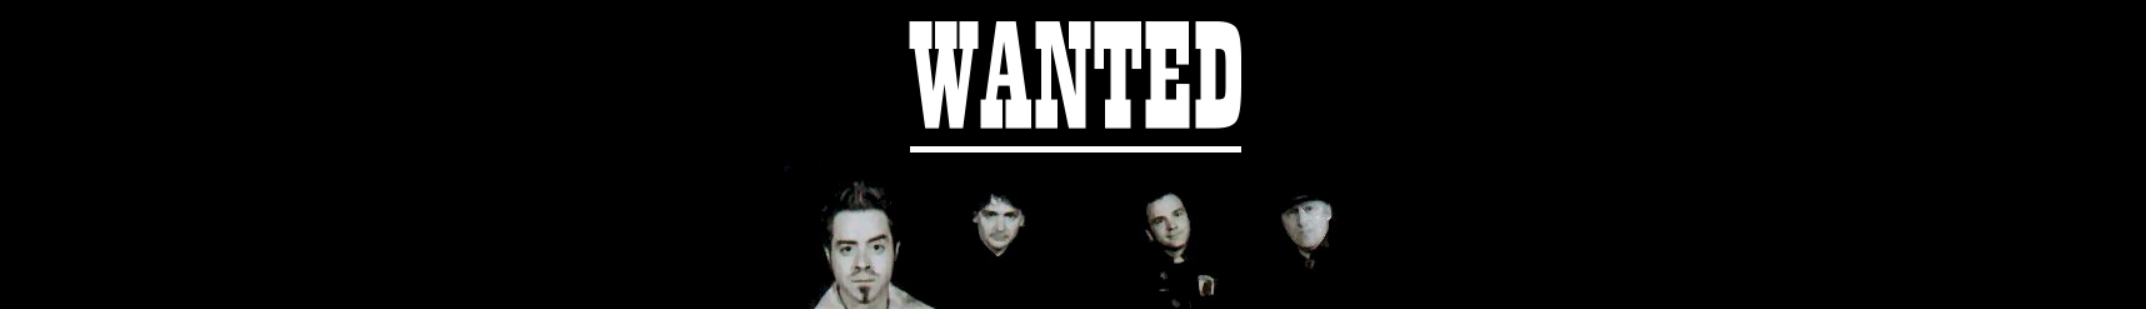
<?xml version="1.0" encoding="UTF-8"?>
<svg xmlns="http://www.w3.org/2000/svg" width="2146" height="309">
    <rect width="100%" height="100%" fill="#000000"/>
    <image x="908" y="21" width="334" height="132" href="img_01.png"/>
    <image x="784" y="161" width="554" height="148" href="img_02.png"/>
</svg>
